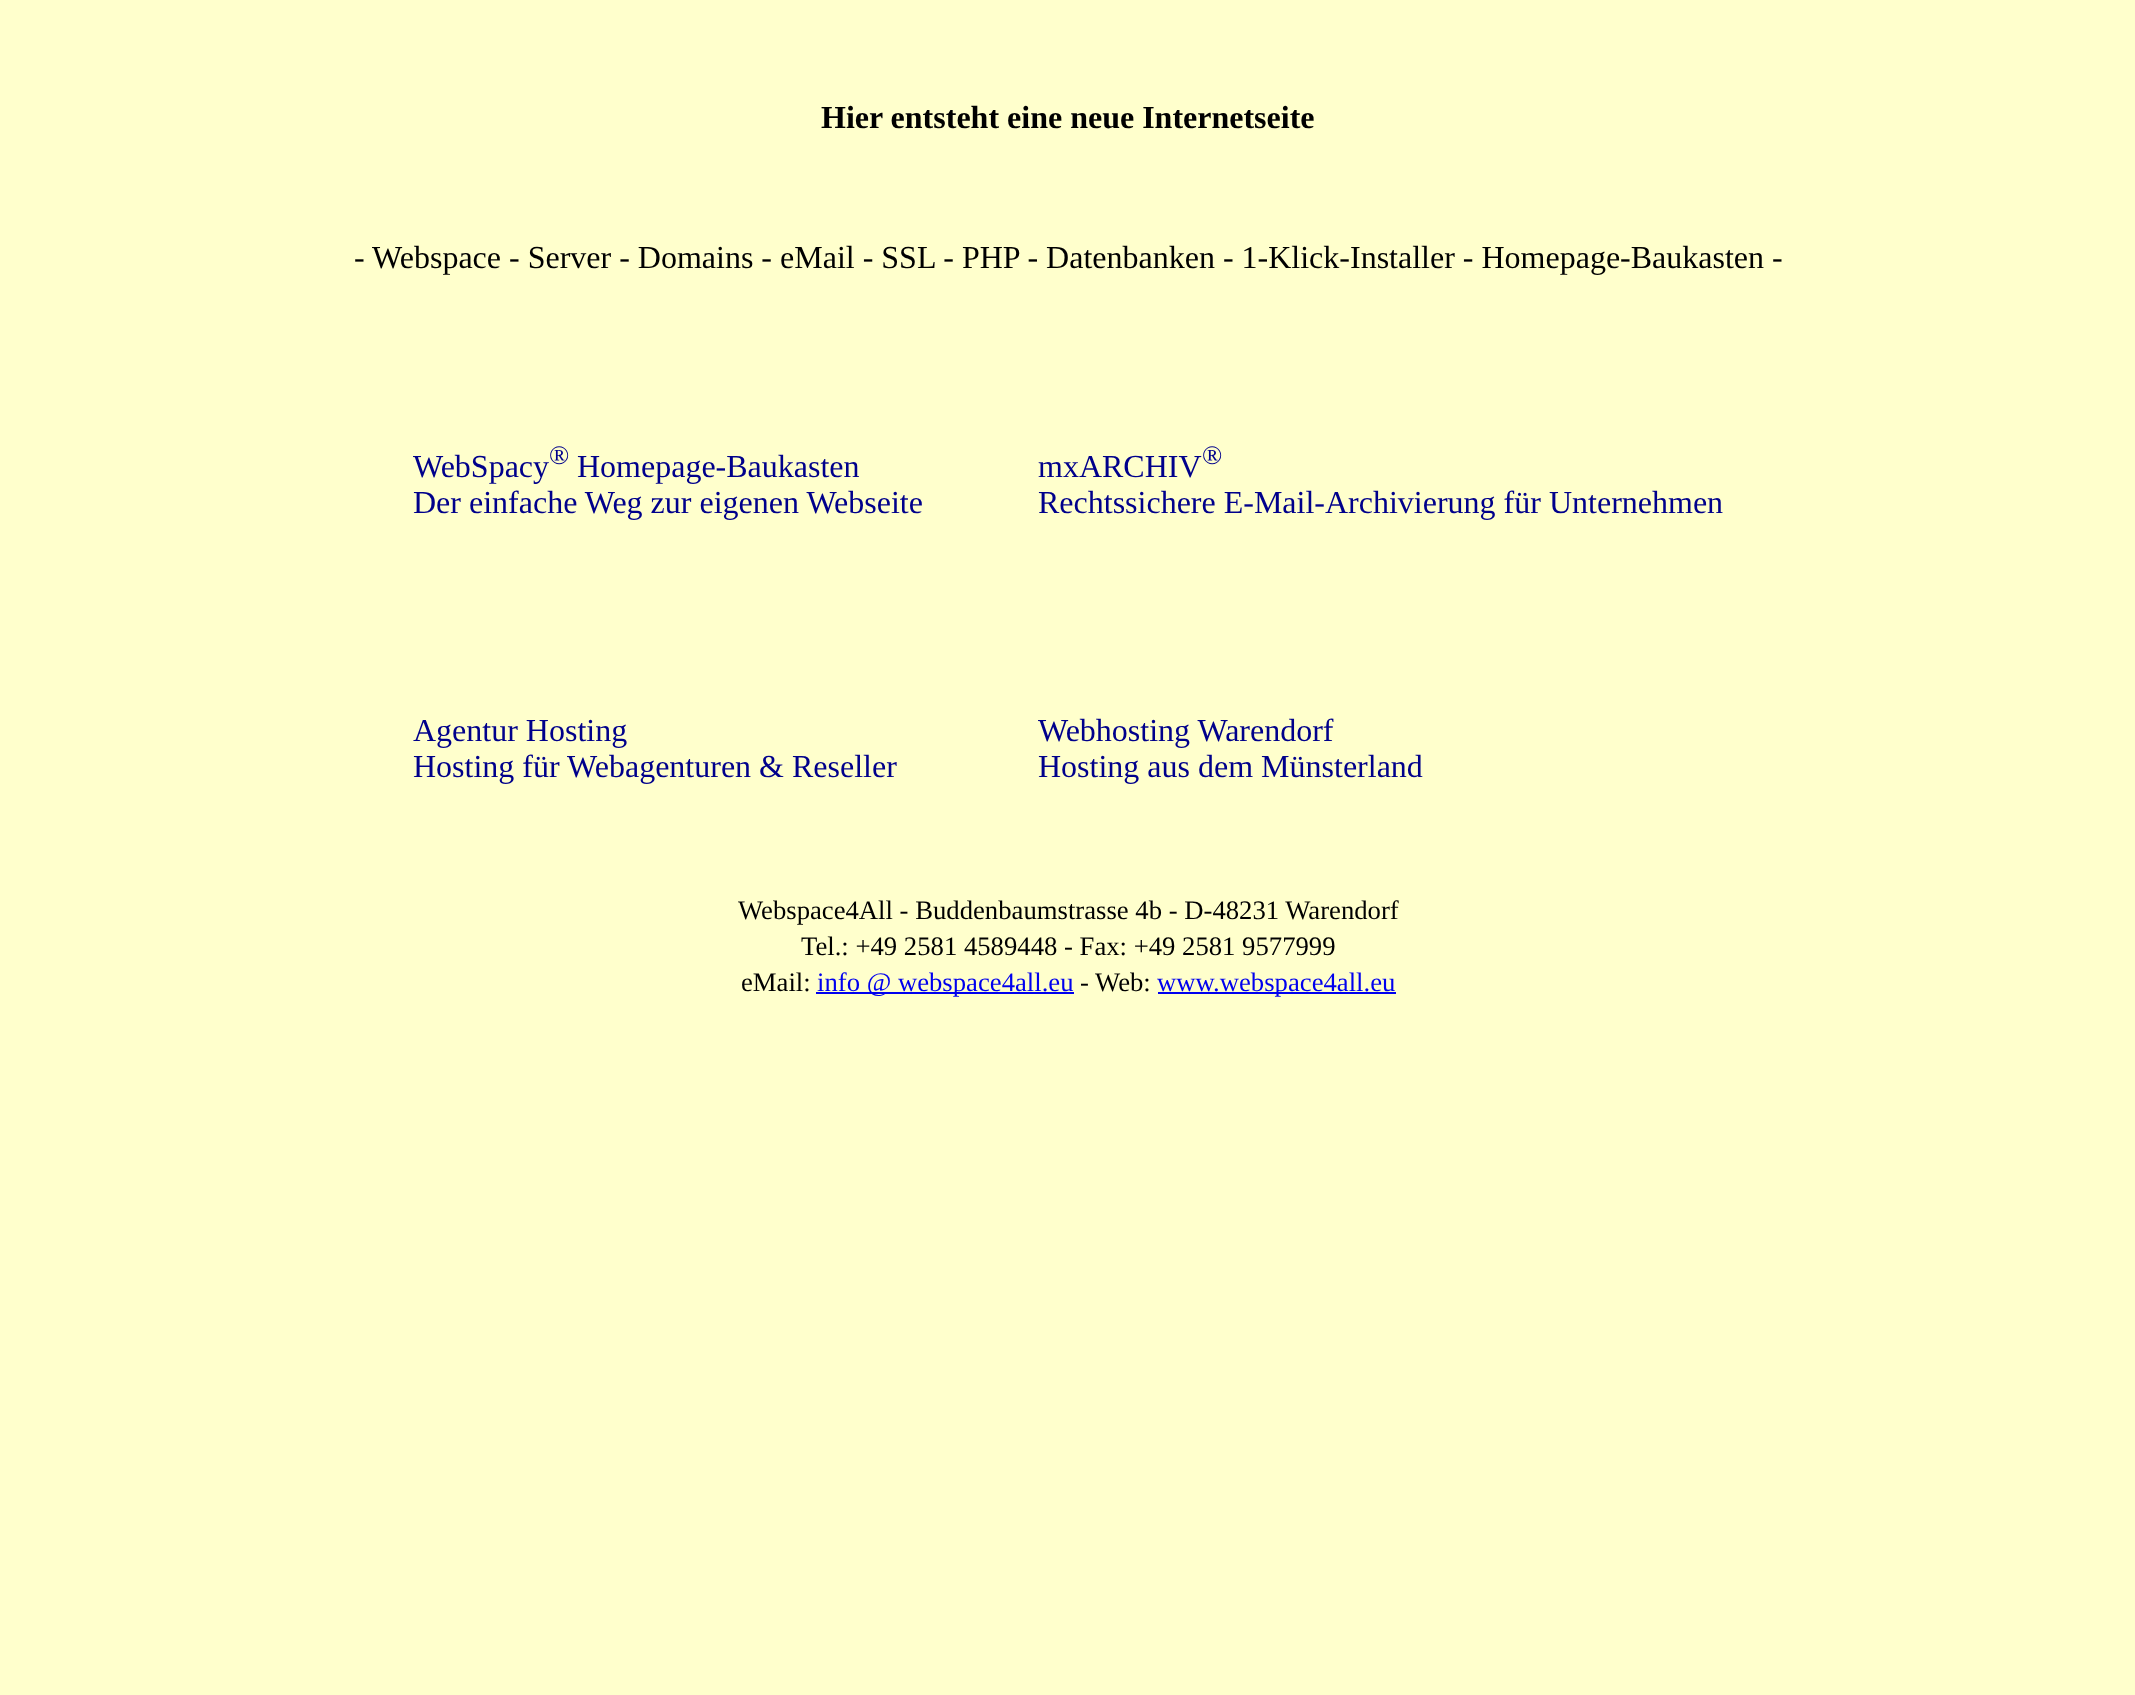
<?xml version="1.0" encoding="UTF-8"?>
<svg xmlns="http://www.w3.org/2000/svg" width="2135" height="1695">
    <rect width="100%" height="100%" fill="#FFFFCC"/>
    <text x="821" y="128" font-family="Liberation Serif" font-size="32" font-weight="700" fill="#000000">Hier entsteht eine neue Internetseite</text>
    <text x="354" y="268" font-family="Liberation Serif" font-size="32" fill="#000000">- Webspace - Server - Domains - eMail - SSL - PHP - Datenbanken - 1-Klick-Installer - Homepage-Baukasten -</text>
    <text x="413" y="477" font-family="Liberation Serif" font-size="32" fill="#00008B">WebSpacy</text>
    <text x="549" y="464" font-family="Liberation Serif" font-size="26.7" fill="#00008B">®</text>
    <text x="577" y="477" font-family="Liberation Serif" font-size="32" fill="#00008B">Homepage-Baukasten</text>
    <text x="413" y="513" font-family="Liberation Serif" font-size="32" fill="#00008B">Der einfache Weg zur eigenen Webseite</text>
    <text x="1038" y="477" font-family="Liberation Serif" font-size="32" fill="#00008B">mxARCHIV</text>
    <text x="1202" y="464" font-family="Liberation Serif" font-size="26.7" fill="#00008B">®</text>
    <text x="1038" y="513" font-family="Liberation Serif" font-size="32" fill="#00008B">Rechtssichere E-Mail-Archivierung für Unternehmen</text>
    <text font-family="Liberation Serif" font-size="32" fill="#00008B">
        <tspan x="413" y="741">Agentur Hosting</tspan>
        <tspan x="413" y="777">Hosting für Webagenturen &amp; Reseller</tspan>
    </text>
    <text font-family="Liberation Serif" font-size="32" fill="#00008B">
        <tspan x="1038" y="741">Webhosting Warendorf</tspan>
        <tspan x="1038" y="777">Hosting aus dem Münsterland</tspan>
    </text>
    <text x="738" y="919" font-family="Liberation Serif" font-size="26.7" fill="#000000">Webspace4All - Buddenbaumstrasse 4b - D-48231 Warendorf</text>
    <text x="801" y="955" font-family="Liberation Serif" font-size="26.7" fill="#000000">Tel.: +49 2581 4589448 - Fax: +49 2581 9577999</text>
    <text x="741" y="991" font-family="Liberation Serif" font-size="26.7" fill="#000000">eMail:</text>
    <rect x="816" y="992" width="258" height="2" fill="#0000EE"/>
    <text x="817" y="991" font-family="Liberation Serif" font-size="26.7" fill="#0000EE">info @ webspace4all.eu</text>
    <text x="1080" y="991" font-family="Liberation Serif" font-size="26.7" fill="#000000">- Web:</text>
    <rect x="1158" y="992" width="238" height="2" fill="#0000EE"/>
    <text x="1157" y="991" font-family="Liberation Serif" font-size="26.7" fill="#0000EE">www.webspace4all.eu</text>
</svg>
